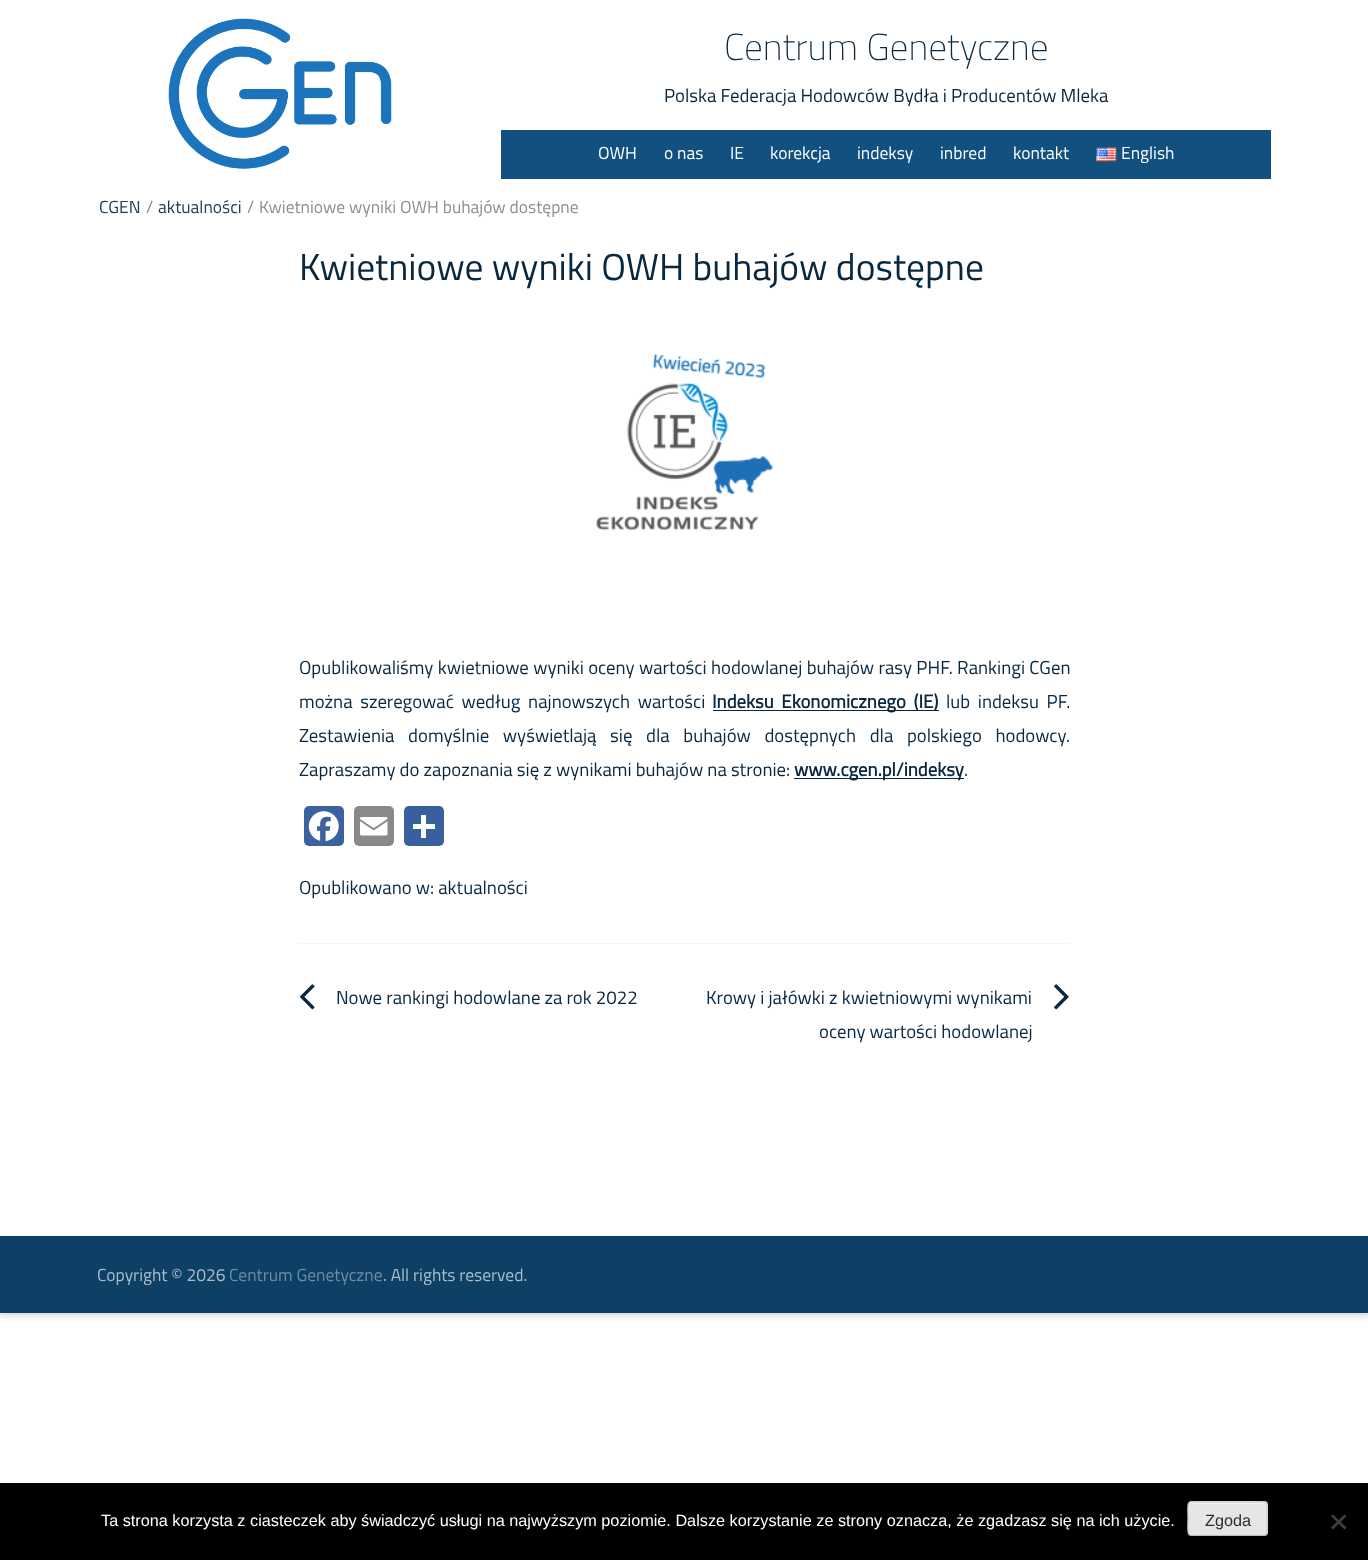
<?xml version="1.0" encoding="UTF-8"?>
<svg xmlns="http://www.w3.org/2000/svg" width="1368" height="1560">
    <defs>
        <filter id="blur1" x="-50%" y="-200%" width="200%" height="500%"><feGaussianBlur stdDeviation="4"/></filter>
    </defs>
    <rect width="100%" height="100%" fill="#FFFFFF"/>
    <rect x="-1" y="-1" width="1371" height="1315" fill="#000000" fill-opacity="0.25" filter="url(#blur1)"/>
    <rect x="0" y="0" width="1368" height="1236" fill="#FFFFFF"/>
    <image x="168" y="18" width="224" height="151" href="img_01.png"/>
    <text x="724" y="60" font-family="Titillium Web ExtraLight" font-size="37.5" font-weight="200" fill="#092840">Centrum Genetyczne</text>
    <text x="664" y="102" font-family="Titillium Web" font-size="18.75" fill="#092840">Polska Federacja Hodowców Bydła i Producentów Mleka</text>
    <rect x="501" y="130" width="770" height="49" fill="#12507F"/>
    <text x="598" y="159" font-family="Titillium Web" font-size="17.5" fill="#FFFFFF">OWH</text>
    <text x="664" y="159" font-family="Titillium Web" font-size="17.5" fill="#FFFFFF">o nas</text>
    <text x="730" y="159" font-family="Titillium Web" font-size="17.5" fill="#FFFFFF">IE</text>
    <text x="770" y="159" font-family="Titillium Web" font-size="17.5" fill="#FFFFFF">korekcja</text>
    <text x="857" y="159" font-family="Titillium Web" font-size="17.5" fill="#FFFFFF">indeksy</text>
    <text x="940" y="159" font-family="Titillium Web" font-size="17.5" fill="#FFFFFF">inbred</text>
    <text x="1013" y="159" font-family="Titillium Web" font-size="17.5" fill="#FFFFFF">kontakt</text>
    <image x="1096" y="147" width="21" height="15" href="img_02.png"/>
    <text x="1121" y="159" font-family="Titillium Web" font-size="17.5" fill="#FFFFFF">English</text>
    <text x="99" y="213" font-family="Titillium Web" font-size="17.5" fill="#223E53">CGEN</text>
    <text x="146" y="213" font-family="Titillium Web" font-size="17.5" fill="#8A8F94">/</text>
    <text x="158" y="213" font-family="Titillium Web" font-size="17.5" fill="#223E53">aktualności</text>
    <text x="247" y="213" font-family="Titillium Web" font-size="17.5" fill="#8A8F94">/</text>
    <text x="259" y="213" font-family="Titillium Web" font-size="17.5" fill="#8A8F94">Kwietniowe wyniki OWH buhajów dostępne</text>
    <text x="299" y="280" font-family="Titillium Web" font-size="37.5" fill="#092840">Kwietniowe wyniki OWH buhajów dostępne</text>
    <image x="596" y="353" width="177" height="178" href="img_03.png"/>
    <text font-family="Titillium Web" font-size="18.75" fill="#092840">
        <tspan x="299" y="674" word-spacing="0.25">Opublikowaliśmy kwietniowe wyniki oceny wartości hodowlanej buhajów rasy PHF. Rankingi CGen</tspan>
        <tspan x="299" y="708" word-spacing="3.5">można szeregować według najnowszych wartości</tspan>
    </text>
    <rect x="713" y="710" width="226" height="1" fill="#092840"/>
    <text x="712" y="708" word-spacing="3.5" font-family="Titillium Web" font-size="18.75" font-weight="700" fill="#092840">Indeksu Ekonomicznego (IE)</text>
    <text x="946" y="708" word-spacing="3.5" font-family="Titillium Web" font-size="18.75" fill="#092840">lub indeksu PF.</text>
    <text font-family="Titillium Web" font-size="18.75" fill="#092840">
        <tspan x="299" y="742" word-spacing="9.5">Zestawienia domyślnie wyświetlają się dla buhajów dostępnych dla polskiego hodowcy.</tspan>
        <tspan x="299" y="776">Zapraszamy do zapoznania się z wynikami buhajów na stronie:</tspan>
    </text>
    <rect x="794" y="778" width="170" height="1" fill="#092840"/>
    <text x="794" y="776" font-family="Titillium Web" font-size="18.75" font-weight="700" fill="#092840">www.cgen.pl/indeksy</text>
    <text x="964" y="776" font-family="Titillium Web" font-size="18.75" fill="#092840">.</text>
    <rect x="304" y="806" width="40" height="40" rx="5" fill="#3B619E"/>
    <image x="308" y="811" width="31" height="31" href="img_04.png"/>
    <rect x="354" y="806" width="40" height="40" rx="5" fill="#89898C"/>
    <image x="360" y="817" width="28" height="19" href="img_05.png"/>
    <rect x="404" y="806" width="40" height="40" rx="5" fill="#37609D"/>
    <rect x="421" y="815" width="5" height="23" fill="#FFFFFF"/>
    <rect x="413" y="824" width="22" height="5" fill="#FFFFFF"/>
    <text x="299" y="894" font-family="Titillium Web" font-size="18.75" fill="#092840">Opublikowano w: aktualności</text>
    <rect x="299" y="943" width="771" height="1" fill="#F4F5F5"/>
    <image x="299" y="984" width="16" height="26" href="img_06.png"/>
    <text x="336" y="1004" font-family="Titillium Web" font-size="18.75" fill="#092840">Nowe rankingi hodowlane za rok 2022</text>
    <text x="706" y="1004" font-family="Titillium Web" font-size="18.75" fill="#092840">Krowy i jałówki z kwietniowymi wynikami</text>
    <image x="1054" y="984" width="15" height="26" href="img_07.png"/>
    <text x="819" y="1038" font-family="Titillium Web" font-size="18.75" fill="#092840">oceny wartości hodowlanej</text>
    <rect x="0" y="1236" width="1368" height="77" fill="#0E4066"/>
    <text x="97" y="1281" font-family="Titillium Web" font-size="17.5" fill="#ABBCC9">Copyright © 2026</text>
    <text x="229" y="1281" font-family="Titillium Web" font-size="17.5" fill="#6E8CA3">Centrum Genetyczne</text>
    <text x="383" y="1281" font-family="Titillium Web" font-size="17.5" fill="#ABBCC9">. All rights reserved.</text>
    <rect x="0" y="1483" width="1368" height="77" fill="#000000"/>
    <text x="101" y="1526" font-family="Liberation Sans" font-size="16.25" fill="#FFFFFF">Ta strona korzysta z ciasteczek aby świadczyć usługi na najwyższym poziomie. Dalsze korzystanie ze strony oznacza, że zgadzasz się na ich użycie.</text>
    <rect x="1188" y="1501" width="80" height="35" rx="4" fill="#E6E6E6"/>
    <path d="M 1191 1504 H 1264 C 1265 1504 1266 1505 1266 1506 C 1266 1500 1252 1503 1252 1503 H 1204 C 1203 1503 1189 1500 1189 1506 C 1189 1505 1190 1504 1191 1504 Z" fill="#F3F3F3"/>
    <path d="M 1266 1534.5 L 1264 1535.5 H 1191 L 1189 1534.5" fill="none" stroke="#BBBBBB" stroke-width="1.2"/>
    <path d="M 1189 1534.5 C 1187 1532.5 1188 1521.5 1188 1519 C 1188 1499.5 1184.5 1502 1203.5 1502 H 1251.5 C 1270.5 1502 1267 1499.5 1267 1519 C 1267 1521.5 1268 1532.5 1266 1534.5" fill="none" stroke="#CCCCCC" stroke-width="1.2"/>
    <text x="1205" y="1526" font-family="Liberation Sans" font-size="16.25" fill="#2E2E2E">Zgoda</text>
    <path d="M 1344.5 1514.5 L 1346.5 1516 L 1333 1529.5 L 1331 1527.5 Z" fill="#404040"/>
    <path d="M 1331 1516 L 1333 1514.5 L 1346.5 1527.5 L 1344.5 1529.5 Z" fill="#404040"/>
</svg>
